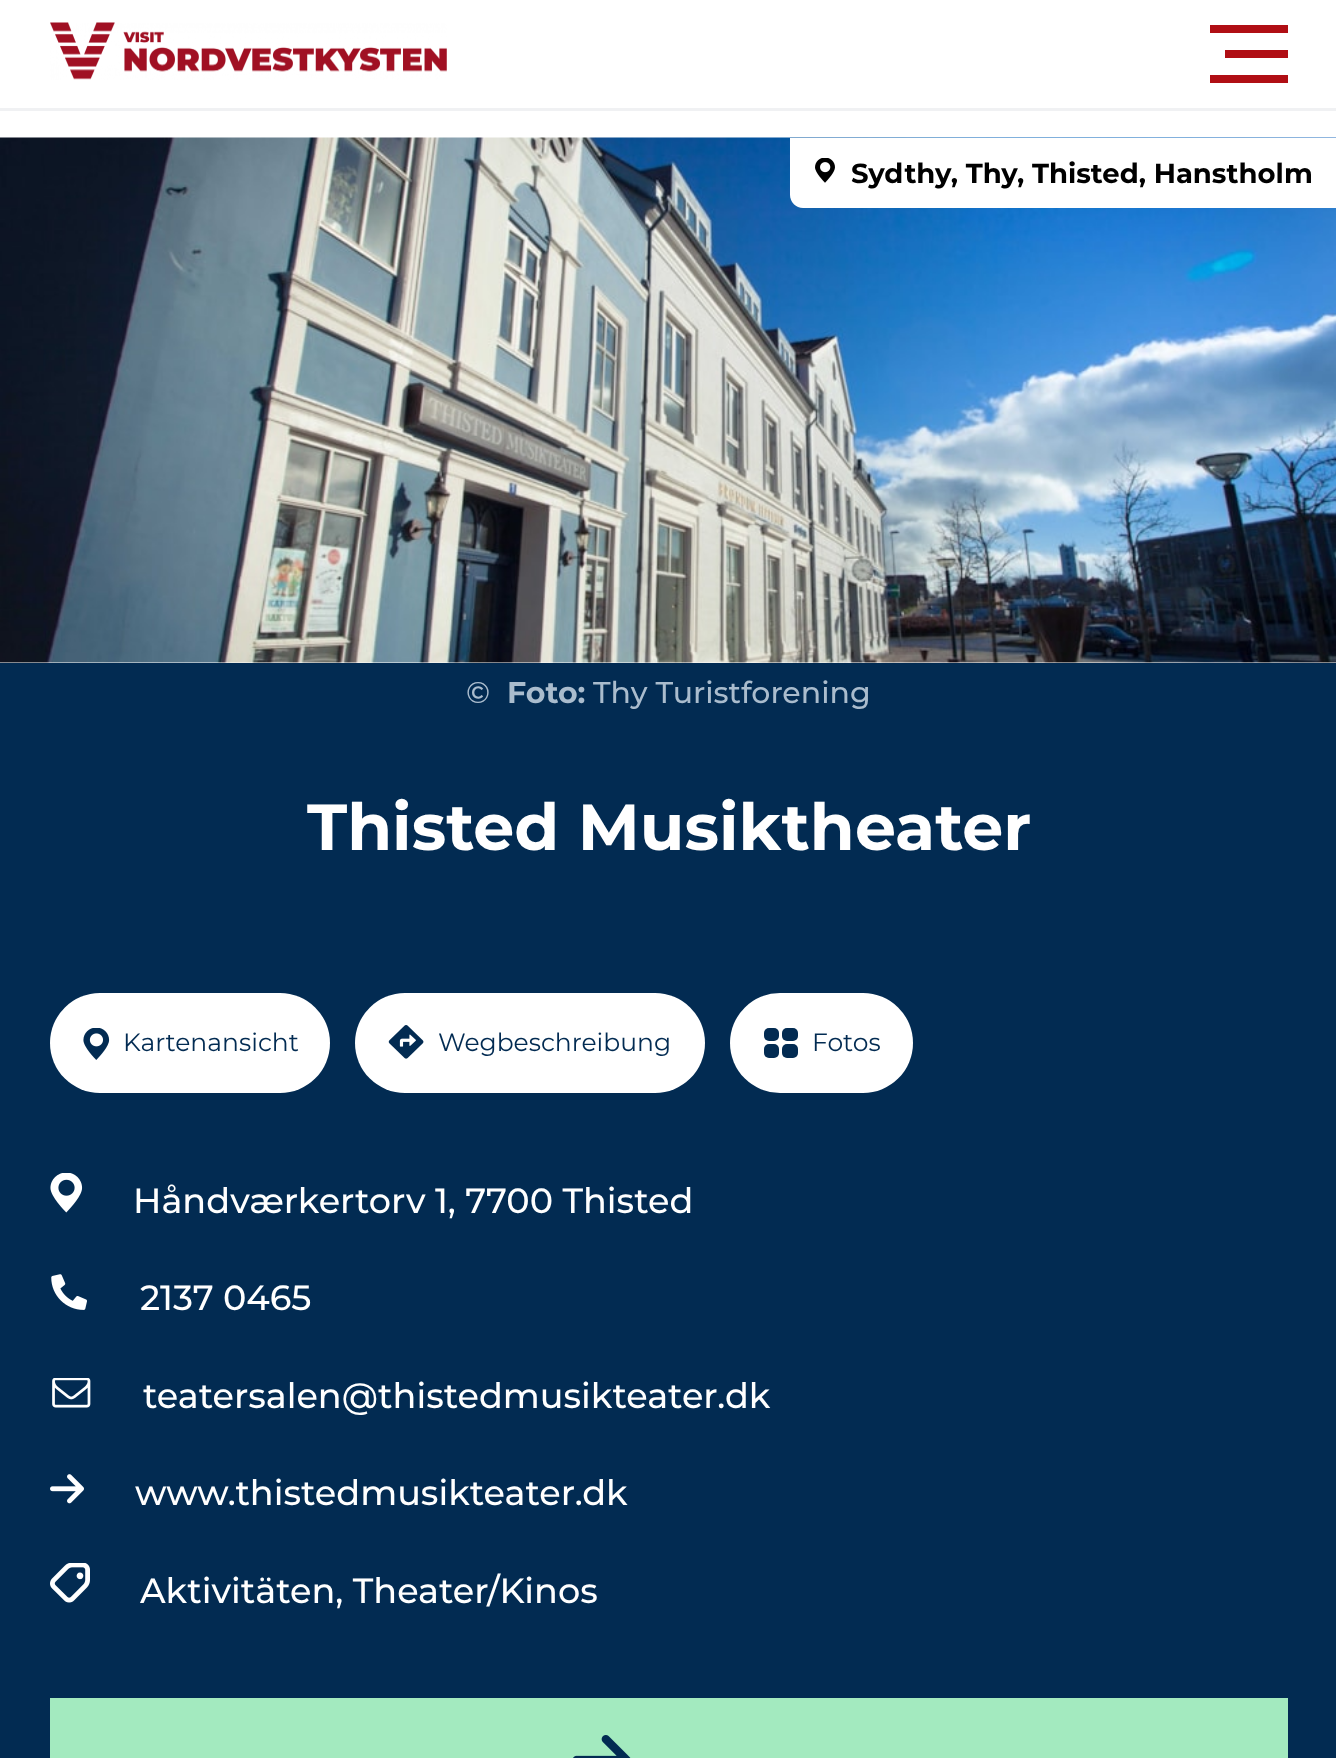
<?xml version="1.0" encoding="UTF-8"?>
<svg xmlns="http://www.w3.org/2000/svg" width="1336" height="1758">
    <rect width="100%" height="100%" fill="#FFFFFF"/>
    <rect x="0" y="108" width="1336" height="3" fill="#F0F1F3"/>
    <image x="50" y="22" width="397" height="58" href="img_01.png"/>
    <rect x="1210" y="25" width="78" height="8" fill="#B00E14"/>
    <rect x="1225" y="50" width="63" height="8" fill="#B00E14"/>
    <rect x="1210" y="75" width="78" height="8" fill="#B00E14"/>
    <image x="0" y="137" width="1336" height="526" href="img_02.png"/>
    <path d="M 790 138 H 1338 V 208 H 803 C 796 208 790 202 790 195 Z" fill="#FFFFFF"/>
    <image x="815" y="158" width="20" height="25" href="img_03.png"/>
    <text x="851" y="183" font-family="Montserrat" font-size="27.5" font-weight="700" fill="#000000">Sydthy, Thy, Thisted, Hanstholm</text>
    <rect x="0" y="663" width="1336" height="1095" fill="#022B52"/>
    <text x="466" y="703" font-family="Montserrat" font-size="30" font-weight="500" fill="#AABCCD">©</text>
    <text x="507" y="703" font-family="Montserrat" font-size="30" font-weight="700" fill="#AABCCD">Foto:</text>
    <text x="593" y="703" font-family="Montserrat" font-size="30" font-weight="500" fill="#AABCCD">Thy Turistforening</text>
    <text x="307" y="850" font-family="Montserrat" font-size="65" font-weight="700" fill="#FFFFFF">Thisted Musiktheater</text>
    <rect x="50" y="993" width="280" height="100" rx="50" fill="#FFFFFF"/>
    <image x="83" y="1028" width="27" height="32" href="img_04.png"/>
    <text x="123" y="1051" font-family="Montserrat" font-size="25" fill="#022B52">Kartenansicht</text>
    <rect x="355" y="993" width="350" height="100" rx="50" fill="#FFFFFF"/>
    <image x="388" y="1025" width="36" height="34" href="img_05.png"/>
    <text x="438" y="1051" font-family="Montserrat" font-size="25" fill="#022B52">Wegbeschreibung</text>
    <rect x="730" y="993" width="183" height="100" rx="50" fill="#FFFFFF"/>
    <rect x="782" y="1028" width="16" height="13" rx="5" fill="#022B52"/>
    <rect x="782" y="1044" width="16" height="14" rx="5" fill="#022B52"/>
    <rect x="764" y="1028" width="15" height="13" rx="5" fill="#022B52"/>
    <rect x="764" y="1044" width="15" height="14" rx="5" fill="#022B52"/>
    <text x="812" y="1051" font-family="Montserrat" font-size="25" fill="#022B52">Fotos</text>
    <image x="50" y="1173" width="33" height="40" href="img_06.png"/>
    <text x="133" y="1213" font-family="Montserrat" font-size="35" font-weight="500" fill="#FFFFFF">Håndværkertorv 1, 7700 Thisted</text>
    <image x="51" y="1274" width="36" height="36" href="img_07.png"/>
    <text x="140" y="1310" font-family="Montserrat" font-size="35" font-weight="500" fill="#FFFFFF">2137 0465</text>
    <image x="52" y="1378" width="39" height="30" href="img_08.png"/>
    <text x="143" y="1408" font-family="Montserrat" font-size="35" font-weight="500" fill="#FFFFFF">teatersalen@thistedmusikteater.dk</text>
    <image x="50" y="1474" width="34" height="30" href="img_09.png"/>
    <text x="135" y="1505" font-family="Montserrat" font-size="35" font-weight="500" fill="#FFFFFF">www.thistedmusikteater.dk</text>
    <image x="50" y="1563" width="40" height="40" href="img_10.png"/>
    <text x="140" y="1603" font-family="Montserrat" font-size="35" font-weight="500" fill="#FFFFFF">Aktivitäten, Theater/Kinos</text>
    <rect x="50" y="1698" width="1238" height="60" fill="#A3EABF"/>
    <image x="573" y="1735" width="58" height="23" href="img_11.png"/>
</svg>
